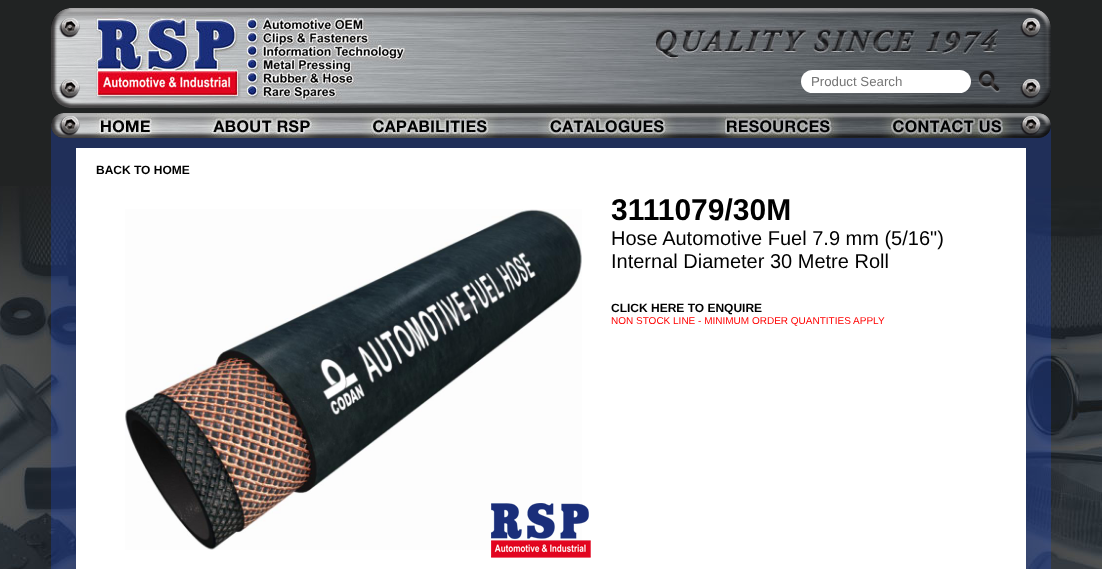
<?xml version="1.0" encoding="UTF-8"?>
<svg xmlns="http://www.w3.org/2000/svg" width="1102" height="569">
    <rect width="100%" height="100%" fill="#212323"/>
    <rect x="51" y="123" width="1000" height="63" fill="#202F59"/>
    <image x="0" y="186" width="1102" height="383" href="img_01.png"/>
    <image x="51" y="8" width="35" height="100" href="img_02.png"/>
    <image x="86" y="8" width="930" height="100" href="img_03.png"/>
    <rect x="801" y="70" width="170" height="23" rx="11.5" fill="#FFFFFF"/>
    <text x="811" y="86" font-family="Liberation Sans" font-size="13.25" fill="#757575">Product Search</text>
    <image x="978" y="70" width="23" height="23" href="img_04.png"/>
    <image x="1016" y="8" width="35" height="100" href="img_05.png"/>
    <image x="51" y="113" width="45" height="25" href="img_06.png"/>
    <image x="96" y="113" width="58" height="25" href="img_07.png"/>
    <image x="154" y="113" width="56" height="25" href="img_08.png"/>
    <image x="210" y="113" width="104" height="25" href="img_09.png"/>
    <image x="314" y="113" width="56" height="25" href="img_10.png"/>
    <image x="370" y="113" width="120" height="25" href="img_11.png"/>
    <image x="490" y="113" width="57" height="25" href="img_12.png"/>
    <image x="547" y="113" width="121" height="25" href="img_13.png"/>
    <image x="668" y="113" width="56" height="25" href="img_14.png"/>
    <image x="724" y="113" width="110" height="25" href="img_15.png"/>
    <image x="834" y="113" width="56" height="25" href="img_16.png"/>
    <image x="890" y="113" width="116" height="25" href="img_17.png"/>
    <image x="1006" y="113" width="45" height="25" href="img_18.png"/>
    <rect x="76" y="148" width="950" height="421" fill="#FFFFFF"/>
    <text x="96" y="174" font-family="Liberation Sans" font-size="12" font-weight="700" fill="#000000">BACK TO HOME</text>
    <image x="125" y="209" width="457" height="341" href="img_19.png"/>
    <image x="491" y="503" width="100" height="55" href="img_20.png"/>
    <text x="611" y="220" font-family="Liberation Sans" font-size="30" font-weight="700" fill="#000000">3111079/30M</text>
    <text font-family="Liberation Sans" font-size="20" fill="#000000">
        <tspan x="611" y="245">Hose Automotive Fuel 7.9 mm (5/16")</tspan>
        <tspan x="611" y="268">Internal Diameter 30 Metre Roll</tspan>
    </text>
    <text x="611" y="312" font-family="Liberation Sans" font-size="12" font-weight="700" fill="#000000">CLICK HERE TO ENQUIRE</text>
    <text x="611" y="324" font-family="Liberation Sans" font-size="10" fill="#FF0000">NON STOCK LINE - MINIMUM ORDER QUANTITIES APPLY</text>
</svg>
